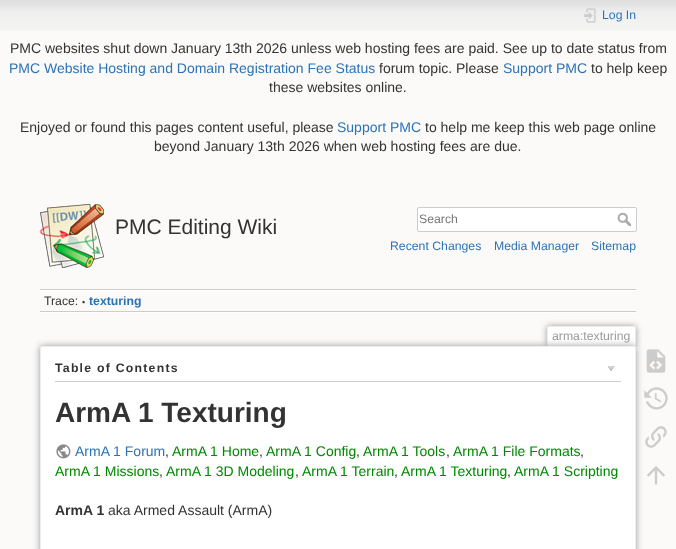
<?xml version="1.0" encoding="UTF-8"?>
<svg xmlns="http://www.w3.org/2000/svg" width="676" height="549">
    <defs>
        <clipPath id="clip1"><rect x="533" y="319" width="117" height="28"/></clipPath>
        <filter id="blur1" x="-50%" y="-200%" width="200%" height="500%"><feGaussianBlur stdDeviation="3"/></filter>
        <filter id="blur2" x="-50%" y="-200%" width="200%" height="500%"><feGaussianBlur stdDeviation="3.5"/></filter>
    </defs>
    <rect width="100%" height="100%" fill="#FBFAF9"/>
    <image x="0" y="0" width="676" height="31" href="img_01.png"/>
    <image x="40" y="204" width="64" height="64" href="img_02.png"/>
    <text x="115" y="234" font-family="Liberation Sans" font-size="21" fill="#333333">PMC Editing Wiki</text>
    <image x="584" y="8" width="12" height="15" href="img_03.png"/>
    <text x="602" y="19" font-family="Liberation Sans" font-size="12.25" fill="#2B73B7">Log In</text>
    <rect x="417.5" y="207.5" width="219" height="24" rx="1.5" fill="#FFFFFF" stroke="#CCCCCC"/>
    <text x="419" y="223" font-family="Liberation Sans" font-size="12.25" fill="#757575">Search</text>
    <image x="617" y="212" width="14" height="14" href="img_04.png"/>
    <text x="390" y="250" font-family="Liberation Sans" font-size="12.25" fill="#2B73B7">Recent Changes</text>
    <text x="494" y="250" font-family="Liberation Sans" font-size="12.25" fill="#2B73B7">Media Manager</text>
    <text x="591" y="250" font-family="Liberation Sans" font-size="12.25" fill="#2B73B7">Sitemap</text>
    <rect x="40" y="289" width="596" height="1" fill="#CCCCCC"/>
    <rect x="40" y="312" width="596" height="1" fill="#FFFFFF"/>
    <rect x="40" y="290" width="596" height="1" fill="#FFFFFF"/>
    <rect x="40" y="311" width="596" height="1" fill="#CCCCCC"/>
    <text x="44" y="305" font-family="Liberation Sans" font-size="12.25" fill="#333333">Trace:</text>
    <text x="82" y="305" font-family="Liberation Sans" font-size="9" fill="#333333">•</text>
    <text x="89" y="305" font-family="Liberation Sans" font-size="12.25" font-weight="700" fill="#2B73B7">texturing</text>
    <g clip-path="url(#clip1)">
        <rect x="547" y="326" width="89" height="21" rx="2" fill="#999999" filter="url(#blur1)"/>
    </g>
    <path d="M 549 327 H 634 C 634.5 327 635 327.5 635 328 V 347 H 548 V 328 C 548 327.5 548.5 327 549 327 Z" fill="#FFFFFF"/>
    <rect x="548" y="326" width="87" height="1" fill="#EEEEEE"/>
    <rect x="635" y="327" width="1" height="20" fill="#EEEEEE"/>
    <rect x="547" y="327" width="1" height="20" fill="#EEEEEE"/>
    <text x="552" y="340" font-family="Liberation Sans" font-size="12.25" fill="#999999">arma:texturing</text>
    <rect x="40" y="346" width="596" height="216" rx="2" fill="#999999" filter="url(#blur2)"/>
    <rect x="40.5" y="346.5" width="595" height="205" rx="1.5" fill="#FFFFFF" stroke="#EEEEEE"/>
    <rect x="55" y="381" width="566" height="1" fill="#CCCCCC"/>
    <text x="55" y="372" font-family="Liberation Sans" font-size="12.25" font-weight="700" letter-spacing="1.25" fill="#333333">Table of Contents</text>
    <image x="607" y="366" width="8" height="5" href="img_05.png"/>
    <text x="55" y="422" font-family="Liberation Sans" font-size="28" font-weight="700" fill="#333333">ArmA 1 Texturing</text>
    <image x="56" y="444" width="15" height="15" href="img_06.png"/>
    <text x="75" y="456" font-family="Liberation Sans" font-size="14" fill="#2B73B7">ArmA 1 Forum</text>
    <text x="165" y="456" font-family="Liberation Sans" font-size="14" fill="#333333">,</text>
    <text x="172" y="456" font-family="Liberation Sans" font-size="14" fill="#008800">ArmA 1 Home</text>
    <text x="259" y="456" font-family="Liberation Sans" font-size="14" fill="#333333">,</text>
    <text x="266" y="456" font-family="Liberation Sans" font-size="14" fill="#008800">ArmA 1 Config</text>
    <text x="356" y="456" font-family="Liberation Sans" font-size="14" fill="#333333">,</text>
    <text x="363" y="456" font-family="Liberation Sans" font-size="14" fill="#008800">ArmA 1 Tools</text>
    <text x="446" y="456" font-family="Liberation Sans" font-size="14" fill="#333333">,</text>
    <text x="453" y="456" font-family="Liberation Sans" font-size="14" fill="#008800">ArmA 1 File Formats</text>
    <text x="580" y="456" font-family="Liberation Sans" font-size="14" fill="#333333">,</text>
    <text x="55" y="476" font-family="Liberation Sans" font-size="14" fill="#008800">ArmA 1 Missions</text>
    <text x="159" y="476" font-family="Liberation Sans" font-size="14" fill="#333333">,</text>
    <text x="166" y="476" font-family="Liberation Sans" font-size="14" fill="#008800">ArmA 1 3D Modeling</text>
    <text x="295" y="476" font-family="Liberation Sans" font-size="14" fill="#333333">,</text>
    <text x="302" y="476" font-family="Liberation Sans" font-size="14" fill="#008800">ArmA 1 Terrain</text>
    <text x="394" y="476" font-family="Liberation Sans" font-size="14" fill="#333333">,</text>
    <text x="401" y="476" font-family="Liberation Sans" font-size="14" fill="#008800">ArmA 1 Texturing</text>
    <text x="507" y="476" font-family="Liberation Sans" font-size="14" fill="#333333">,</text>
    <text x="514" y="476" font-family="Liberation Sans" font-size="14" fill="#008800">ArmA 1 Scripting</text>
    <text x="55" y="515" font-family="Liberation Sans" font-size="14" font-weight="700" fill="#333333">ArmA 1</text>
    <text x="108" y="515" font-family="Liberation Sans" font-size="14" fill="#333333">aka Armed Assault (ArmA)</text>
    <image x="646" y="349" width="20" height="24" href="img_07.png"/>
    <image x="644" y="387" width="24" height="23" href="img_08.png"/>
    <image x="645" y="426" width="22" height="22" href="img_09.png"/>
    <image x="647" y="466" width="18" height="19" href="img_10.png"/>
    <text x="10" y="53" font-family="Liberation Sans" font-size="14" fill="#333333">PMC websites shut down January 13th 2026 unless web hosting fees are paid. See up to date status from</text>
    <text x="9" y="73" font-family="Liberation Sans" font-size="14" fill="#2B73B7">PMC Website Hosting and Domain Registration Fee Status</text>
    <text x="379" y="73" font-family="Liberation Sans" font-size="14" fill="#333333">forum topic. Please</text>
    <text x="503" y="73" font-family="Liberation Sans" font-size="14" fill="#2B73B7">Support PMC</text>
    <text x="591" y="73" font-family="Liberation Sans" font-size="14" fill="#333333">to help keep</text>
    <text x="269" y="92" font-family="Liberation Sans" font-size="14" fill="#333333">these websites online.</text>
    <text x="20" y="132" font-family="Liberation Sans" font-size="14" fill="#333333">Enjoyed or found this pages content useful, please</text>
    <text x="337" y="132" font-family="Liberation Sans" font-size="14" fill="#2B73B7">Support PMC</text>
    <text x="425" y="132" font-family="Liberation Sans" font-size="14" fill="#333333">to help me keep this web page online</text>
    <text x="154" y="151" font-family="Liberation Sans" font-size="14" fill="#333333">beyond January 13th 2026 when web hosting fees are due.</text>
</svg>
